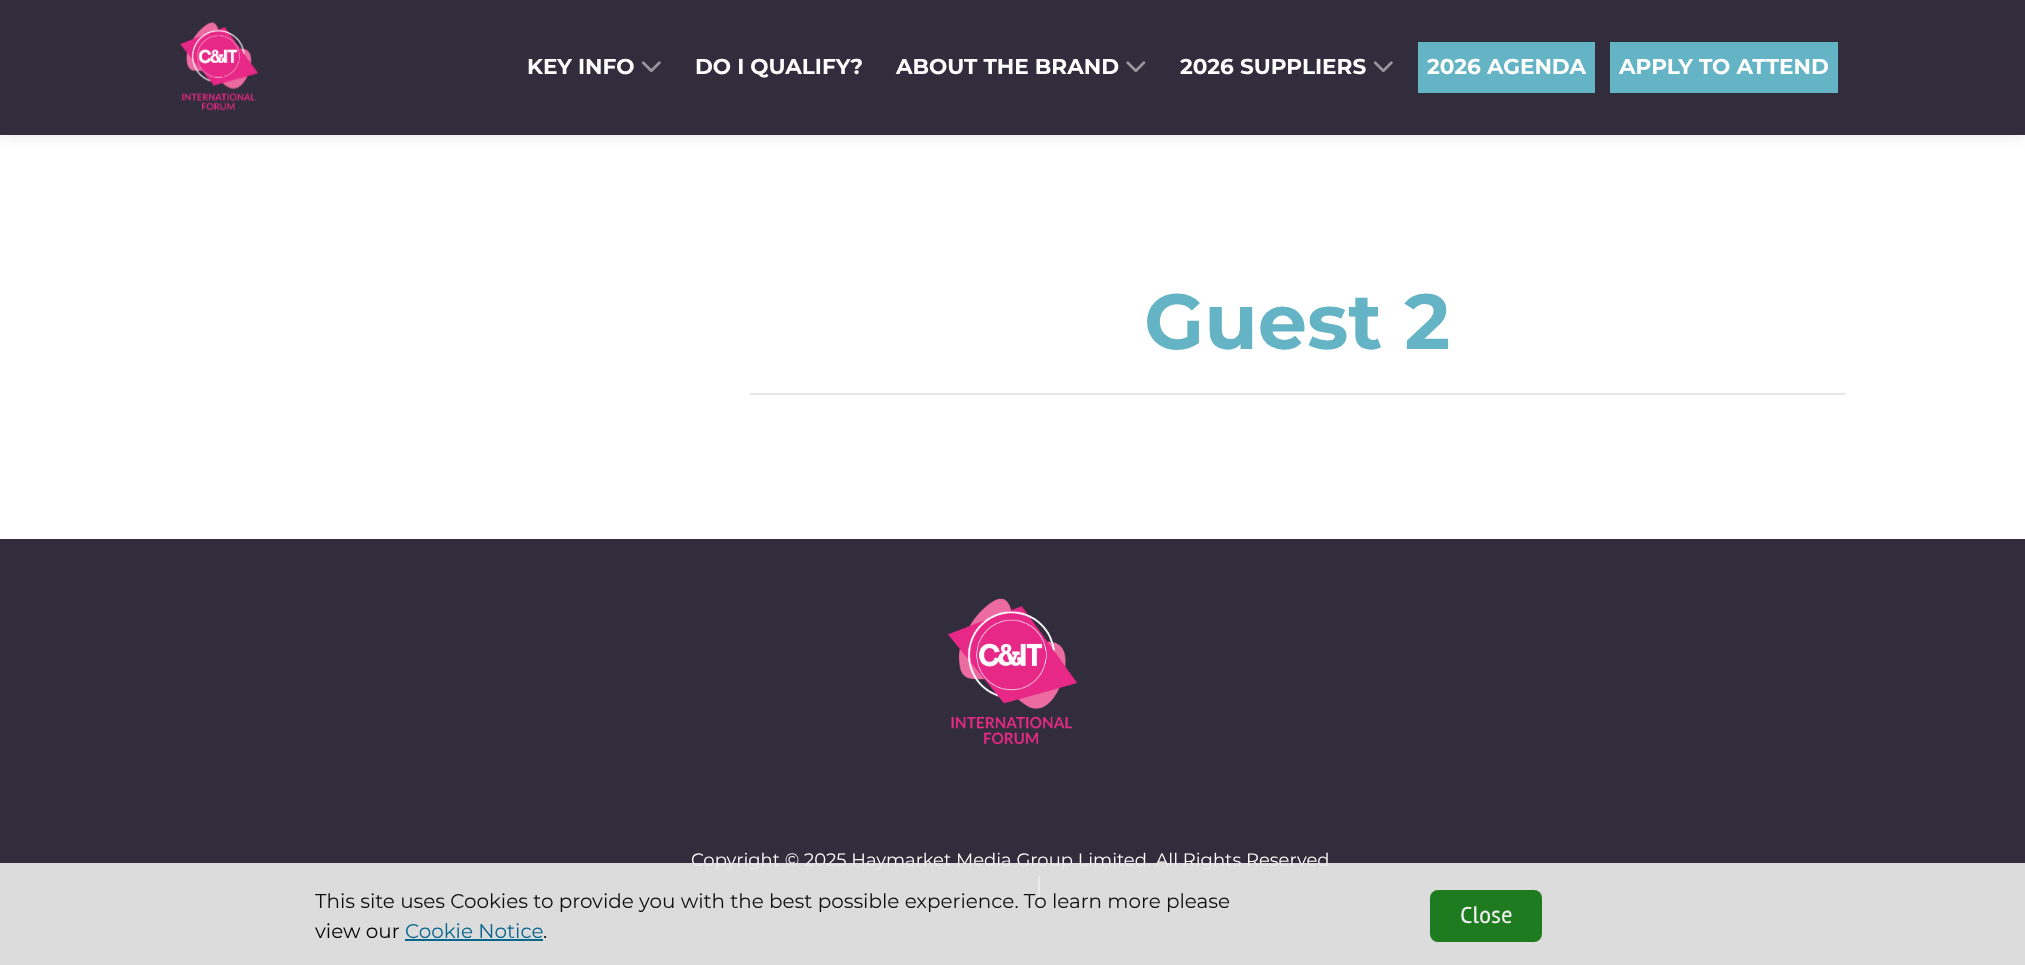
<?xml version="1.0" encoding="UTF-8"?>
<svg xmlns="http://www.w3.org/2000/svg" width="2025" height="965">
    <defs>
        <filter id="blur1" x="-50%" y="-200%" width="200%" height="500%"><feGaussianBlur stdDeviation="7.5"/></filter>
    </defs>
    <rect width="100%" height="100%" fill="#FFFFFF"/>
    <rect x="0" y="0" width="2025" height="135" fill="#000000" fill-opacity="0.1" filter="url(#blur1)"/>
    <rect x="0" y="0" width="2025" height="135" fill="#322D3C"/>
    <image x="180" y="22" width="78" height="89" href="img_01.png"/>
    <text x="527" y="74" font-family="Montserrat" font-size="21.6" font-weight="700" fill="#FFFFFF">KEY INFO</text>
    <image x="641" y="61" width="20" height="12" href="img_02.png"/>
    <text x="695" y="74" font-family="Montserrat" font-size="21.6" font-weight="700" fill="#FFFFFF">DO I QUALIFY?</text>
    <text x="896" y="74" font-family="Montserrat" font-size="21.6" font-weight="700" fill="#FFFFFF">ABOUT THE BRAND</text>
    <image x="1126" y="61" width="20" height="12" href="img_03.png"/>
    <text x="1180" y="74" font-family="Montserrat" font-size="21.6" font-weight="700" fill="#FFFFFF">2026 SUPPLIERS</text>
    <image x="1373" y="61" width="20" height="12" href="img_02.png"/>
    <rect x="1418" y="42" width="177" height="51" fill="#64B4C5"/>
    <text x="1427" y="74" font-family="Montserrat" font-size="21.6" font-weight="700" fill="#FFFFFF">2026 AGENDA</text>
    <rect x="1610" y="42" width="228" height="51" fill="#64B4C5"/>
    <text x="1619" y="74" font-family="Montserrat" font-size="21.6" font-weight="700" fill="#FFFFFF">APPLY TO ATTEND</text>
    <text x="1144" y="349" font-family="Montserrat" font-size="78" font-weight="700" fill="#64B4C5">Guest 2</text>
    <rect x="750" y="393" width="1095" height="2" fill="#E6E6E6"/>
    <rect x="0" y="539" width="2025" height="426" fill="#322D3C"/>
    <image x="948" y="598" width="129" height="146" href="img_04.png"/>
    <text x="691" y="866" font-family="Montserrat" font-size="18" fill="#FFFFFF">Copyright © 2025 Haymarket Media Group Limited. All Rights Reserved</text>
    <rect x="1038" y="876" width="2" height="30" fill="#FFFFFF"/>
    <rect x="0" y="863" width="2025" height="102" fill="#EAEAEA" fill-opacity="0.93"/>
    <text x="315" y="908" font-family="Montserrat" font-size="19.95" fill="#0F0F10">This site uses Cookies to provide you with the best possible experience. To learn more please</text>
    <text x="315" y="938" font-family="Montserrat" font-size="19.95" fill="#040304">view our</text>
    <text x="405" y="938" font-family="Montserrat" font-size="19.95" fill="#09668D">Cookie Notice</text>
    <rect x="405" y="939" width="138" height="2" fill="#09668D"/>
    <text x="543" y="938" font-family="Montserrat" font-size="19.95" fill="#040304">.</text>
    <rect x="1430" y="890" width="112" height="52" rx="8" fill="#1F7B20"/>
    <text x="1460" y="923" font-family="Rambla" font-size="24" fill="#F1F0F1">Close</text>
</svg>
